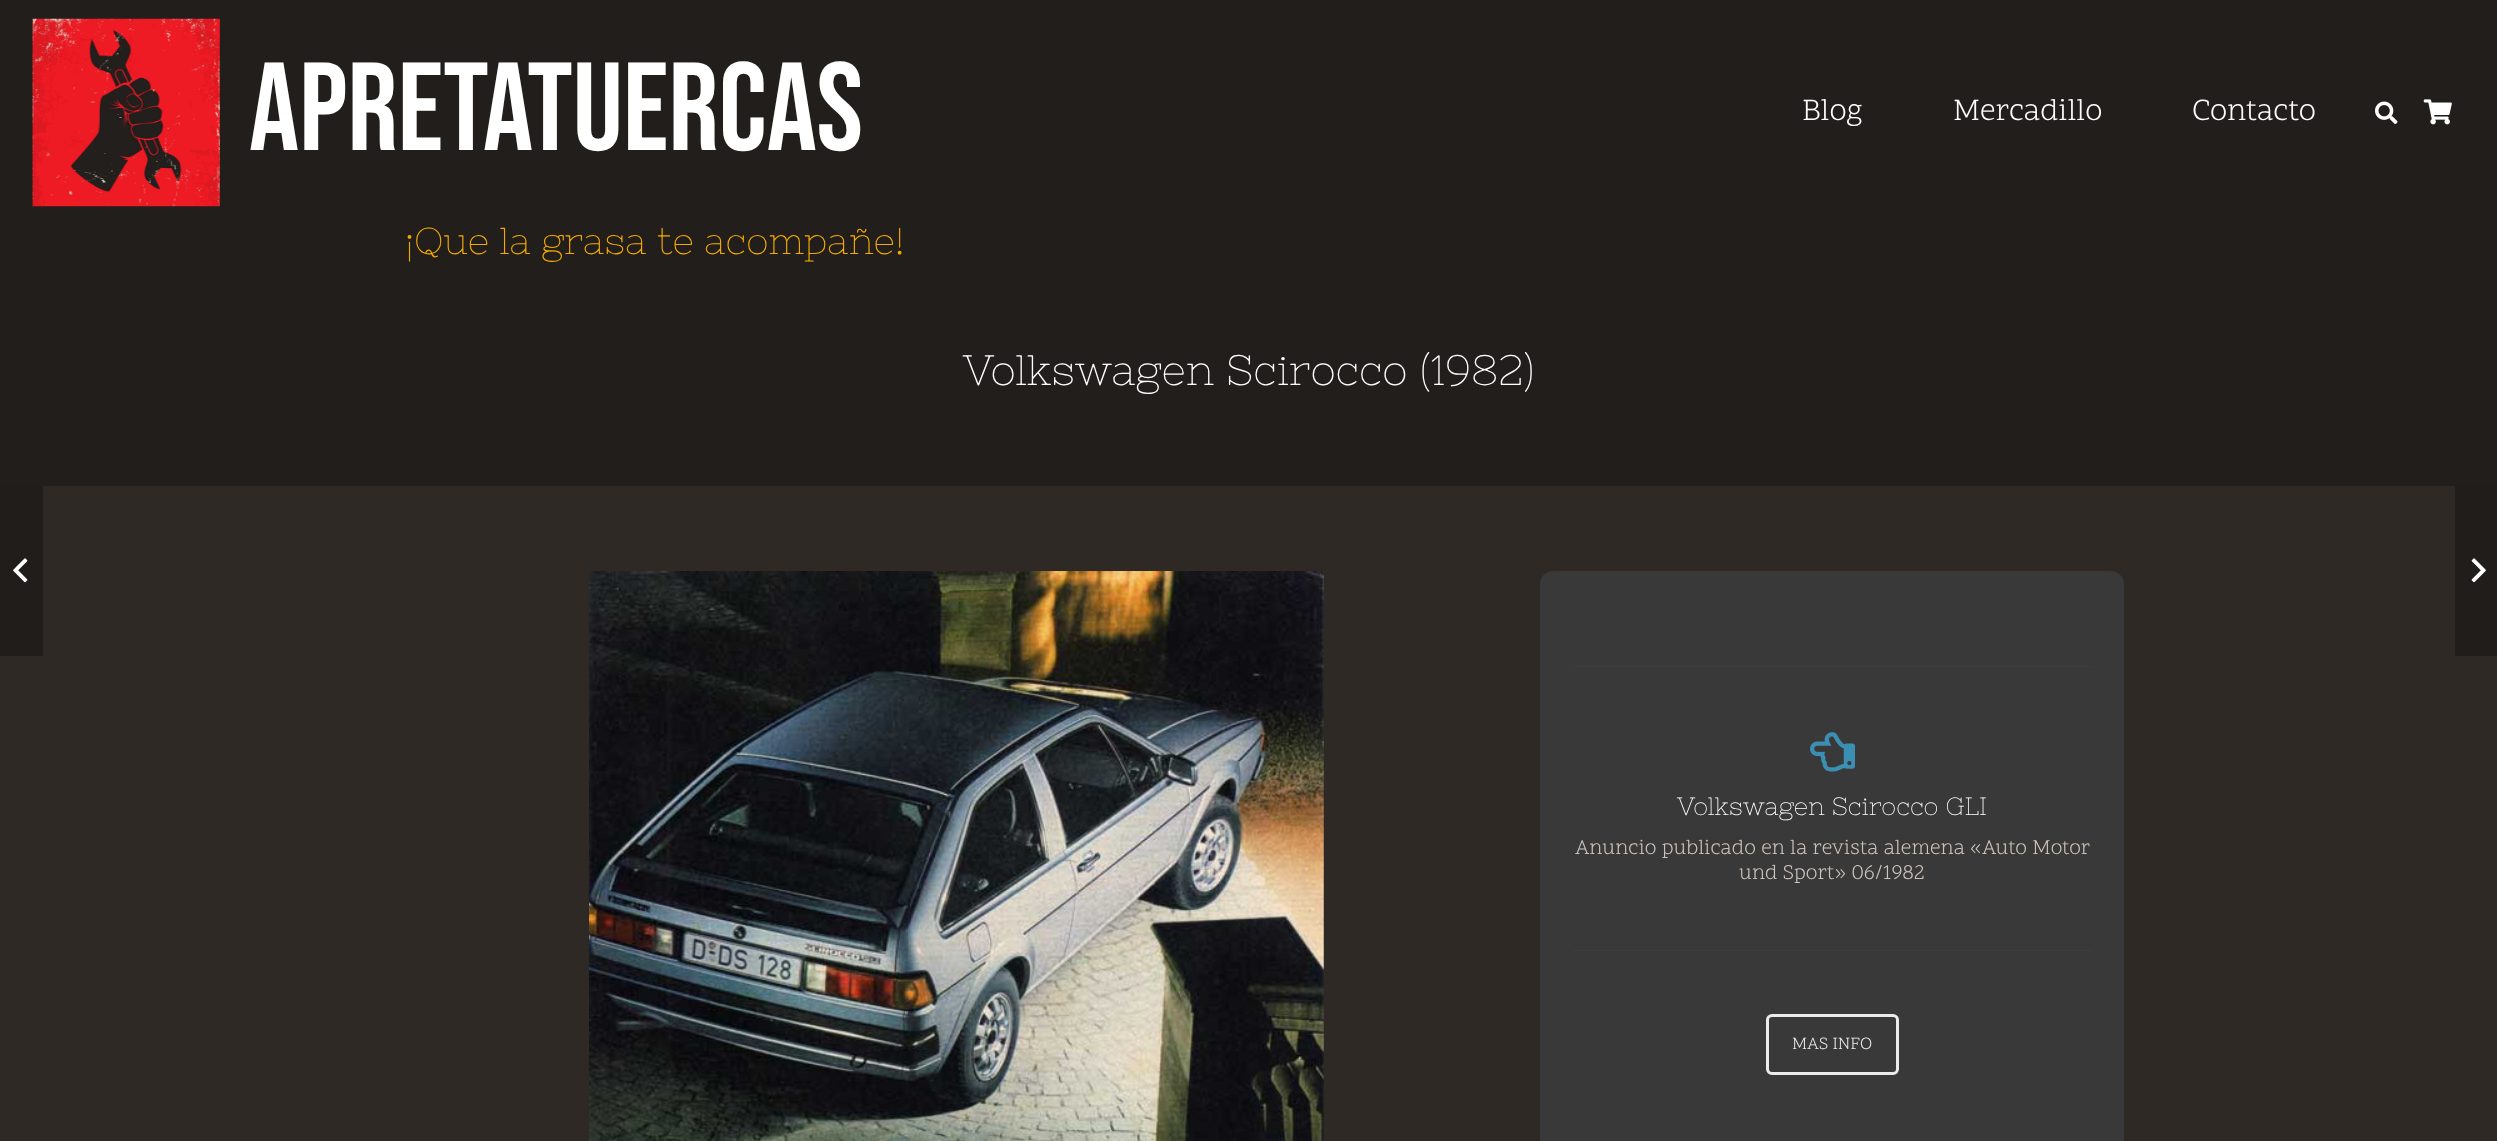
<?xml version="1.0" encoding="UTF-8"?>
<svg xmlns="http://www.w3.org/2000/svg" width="2497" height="1141">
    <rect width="100%" height="100%" fill="#2E2925"/>
    <rect x="0" y="0" width="2497" height="486" fill="#211E1B"/>
    <image x="32" y="18" width="188" height="189" href="img_01.png"/>
    <text x="249" y="150" font-family="Bebas Neue" font-size="125" fill="#FFFFFF">APRETATUERCAS</text>
    <text x="1802" y="120" font-family="Scope One" font-size="31.25" fill="#FFFFFF">Blog</text>
    <text x="1953" y="120" font-family="Scope One" font-size="31.25" fill="#FFFFFF">Mercadillo</text>
    <text x="2192" y="120" font-family="Scope One" font-size="31.25" fill="#FFFFFF">Contacto</text>
    <image x="2375" y="101" width="23" height="23" href="img_02.png"/>
    <image x="2423" y="99" width="29" height="26" href="img_03.png"/>
    <text x="405" y="254" font-family="Nixie One" font-size="37.5" fill="#F4A900">¡Que la grasa te acompañe!</text>
    <text x="963" y="385" font-family="Nixie One" font-size="42.5" fill="#FFFFFF">Volkswagen Scirocco (1982)</text>
    <rect x="0" y="486" width="43" height="170" fill="#201D1A"/>
    <image x="13" y="558" width="15" height="25" href="img_04.png"/>
    <rect x="2455" y="486" width="42" height="170" fill="#201D1A"/>
    <image x="2471" y="558" width="15" height="25" href="img_05.png"/>
    <image x="589" y="571" width="735" height="570" href="img_06.png"/>
    <rect x="1540" y="571" width="584" height="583" rx="13" fill="#393939"/>
    <rect x="1573" y="666" width="520" height="1" fill="#423C36"/>
    <image x="1810" y="732" width="45" height="40" href="img_07.png"/>
    <text x="1677" y="815" font-family="Nixie One" font-size="25" fill="#FFFFFF">Volkswagen Scirocco GLI</text>
    <text x="1575" y="854" font-family="Scope One" font-size="21.25" fill="#CCC4BC">Anuncio publicado en la revista alemena «Auto Motor</text>
    <text x="1739" y="879" font-family="Scope One" font-size="21.25" fill="#CCC4BC">und Sport» 06/1982</text>
    <rect x="1573" y="950" width="520" height="1" fill="#423C36"/>
    <rect x="1767.5" y="1015.5" width="130" height="58" rx="4.5" fill="none" stroke="#EBEBEB" stroke-width="3"/>
    <text x="1792" y="1049" font-family="Scope One" font-size="17.5" fill="#EBEBEB">MAS INFO</text>
</svg>
